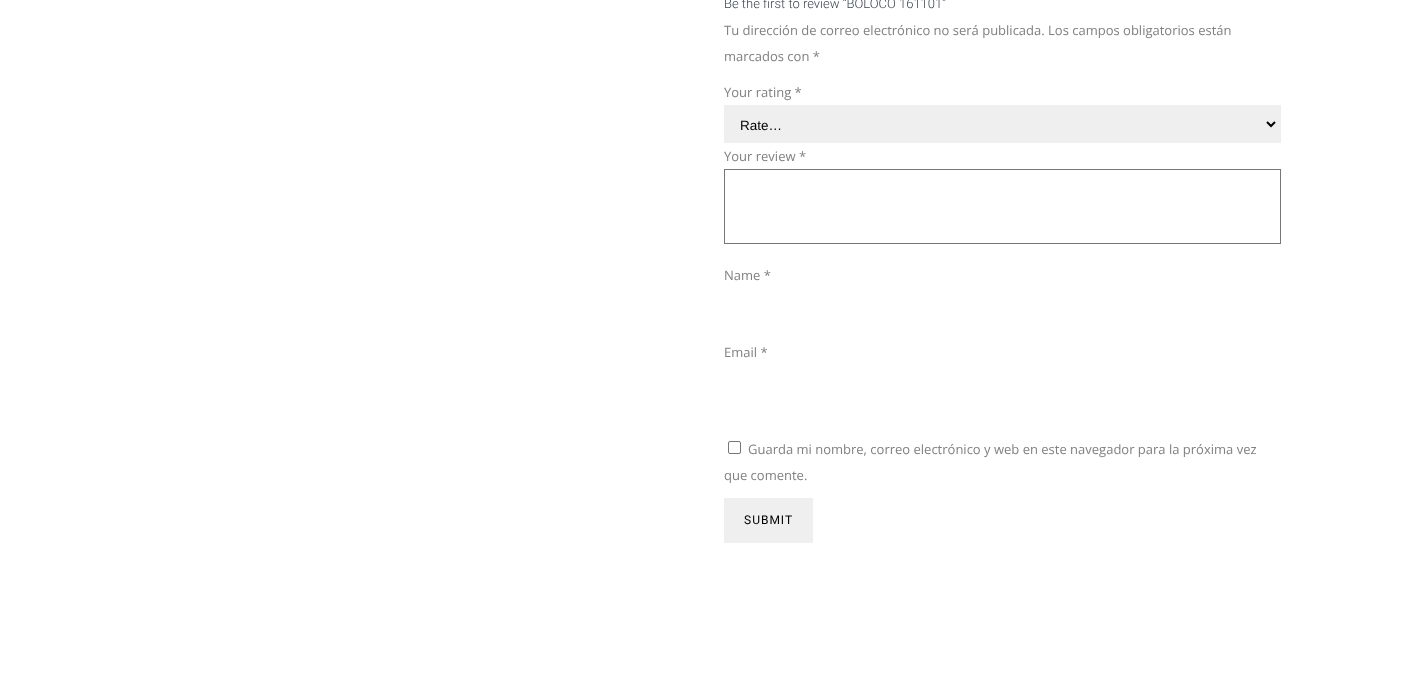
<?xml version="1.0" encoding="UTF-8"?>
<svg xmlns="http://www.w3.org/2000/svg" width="1402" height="675">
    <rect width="100%" height="100%" fill="#FFFFFF"/>
    <text x="724" y="8" font-family="Roboto" font-size="13" font-weight="300" fill="#39454D">Be the first to review “BOLOCO 161101”</text>
    <text x="724" y="35" font-family="Open Sans" font-size="13" fill="#808080">Tu dirección de correo electrónico no será publicada. Los campos obligatorios están</text>
    <text x="724" y="61" font-family="Open Sans" font-size="13" fill="#808080">marcados con *</text>
    <text x="724" y="97" font-family="Open Sans" font-size="13" fill="#808080">Your rating *</text>
    <rect x="724" y="105" width="557" height="38" fill="#EFEFEF"/>
    <path d="M 1267 122 L 1271 126 L 1275 122" fill="none" stroke="#000000" stroke-width="2"/>
    <text x="740" y="130" font-family="Liberation Sans" font-size="13.5" fill="#000000">Rate…</text>
    <text x="724" y="161" font-family="Open Sans" font-size="13" fill="#808080">Your review *</text>
    <rect x="724.5" y="169.5" width="556" height="74" fill="none" stroke="#767676"/>
    <text x="724" y="280" font-family="Open Sans" font-size="13" fill="#808080">Name *</text>
    <text x="724" y="357" font-family="Open Sans" font-size="13" fill="#808080">Email *</text>
    <rect x="728.5" y="441.5" width="12" height="12" rx="1.5" fill="none" stroke="#767676"/>
    <text x="748" y="454" font-family="Open Sans" font-size="13" fill="#808080">Guarda mi nombre, correo electrónico y web en este navegador para la próxima vez</text>
    <text x="724" y="480" font-family="Open Sans" font-size="13" fill="#808080">que comente.</text>
    <rect x="724" y="498" width="89" height="45" fill="#EFEFEF"/>
    <text x="744" y="524" font-family="Roboto" font-size="12" letter-spacing="1" fill="#000000">SUBMIT</text>
</svg>
